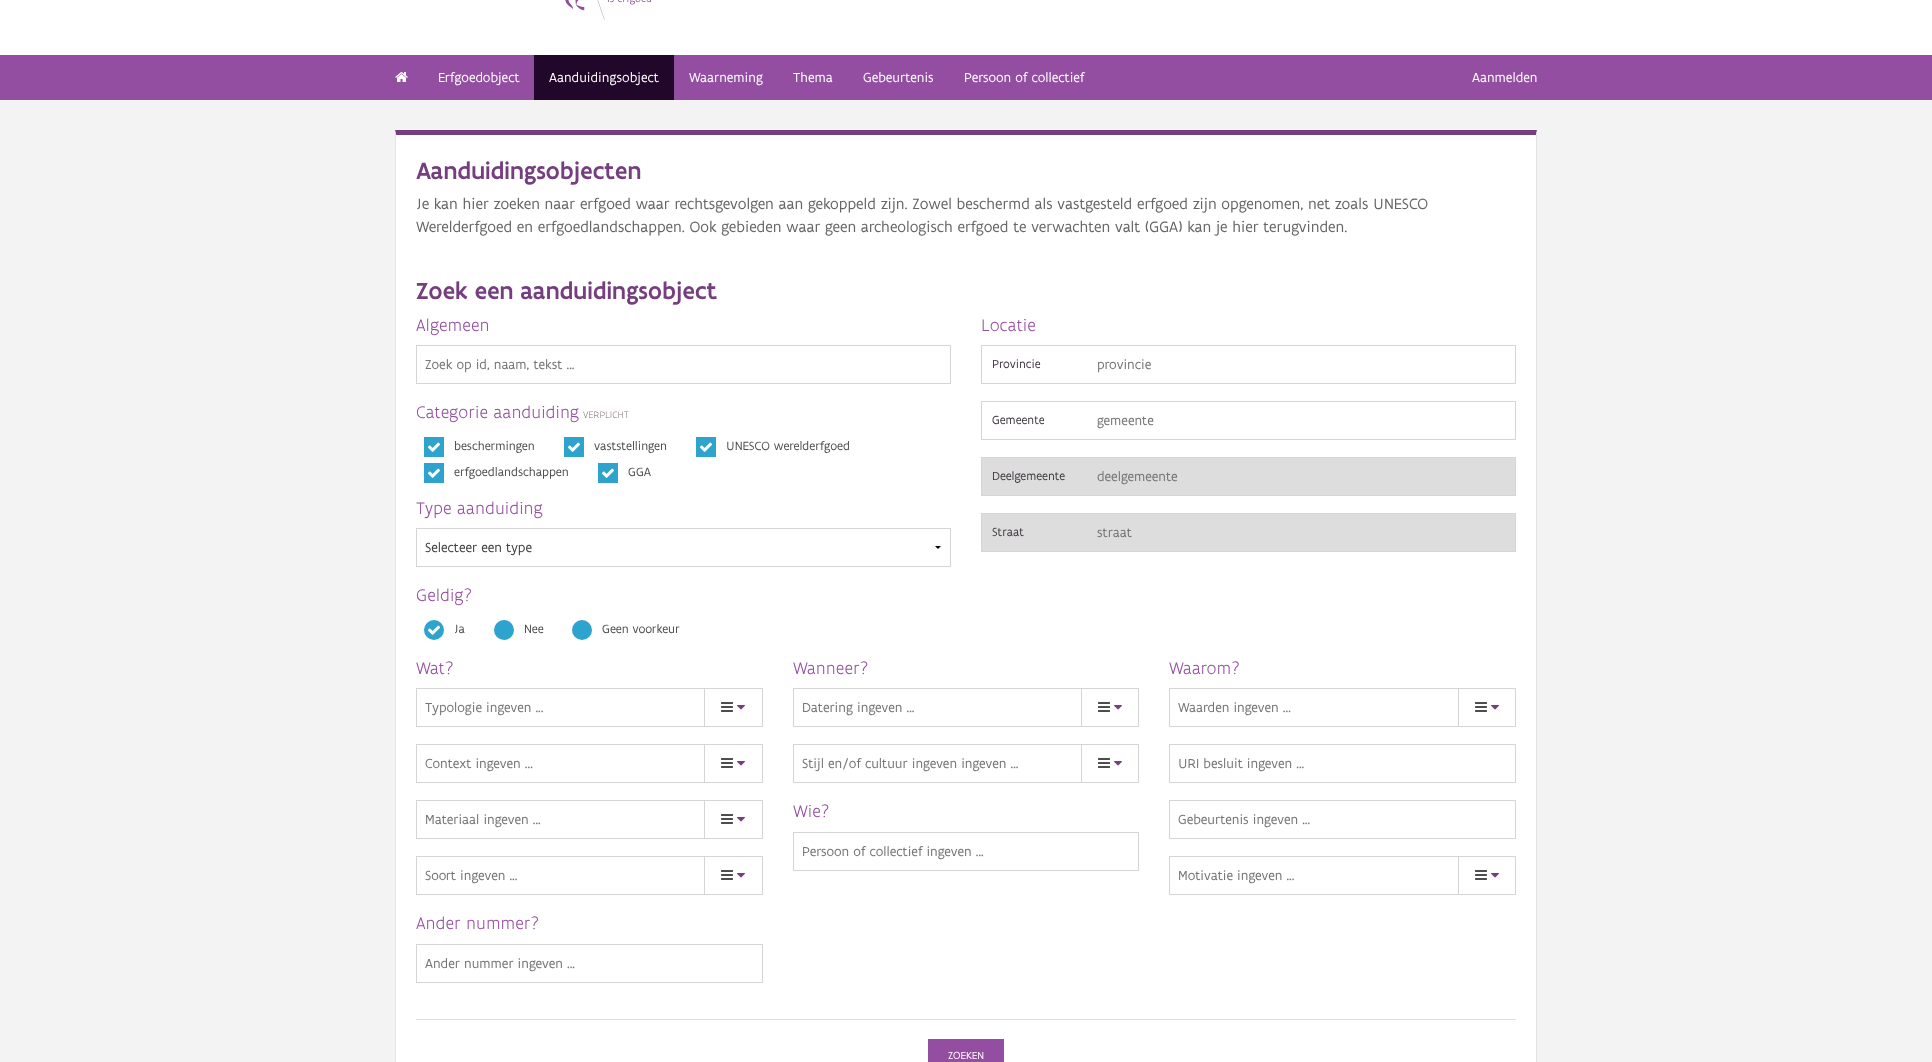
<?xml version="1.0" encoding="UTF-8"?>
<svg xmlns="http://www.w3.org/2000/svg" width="1932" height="1062">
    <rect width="100%" height="100%" fill="#F3F3F3"/>
    <rect x="0" y="0" width="1932" height="55" fill="#FFFFFF"/>
    <image x="565" y="0" width="87" height="20" href="img_01.png"/>
    <rect x="0" y="55" width="1932" height="45" fill="#944EA1"/>
    <image x="395" y="72" width="13" height="10" href="img_02.png"/>
    <text x="438" y="82" font-family="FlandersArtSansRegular" font-size="14" fill="#FFFFFF">Erfgoedobject</text>
    <rect x="534" y="55" width="140" height="45" fill="#210729"/>
    <text x="549" y="82" font-family="FlandersArtSansRegular" font-size="14" fill="#FFFFFF">Aanduidingsobject</text>
    <text x="689" y="82" font-family="FlandersArtSansRegular" font-size="14" fill="#FFFFFF">Waarneming</text>
    <text x="793" y="82" font-family="FlandersArtSansRegular" font-size="14" fill="#FFFFFF">Thema</text>
    <text x="863" y="82" font-family="FlandersArtSansRegular" font-size="14" fill="#FFFFFF">Gebeurtenis</text>
    <text x="964" y="82" font-family="FlandersArtSansRegular" font-size="14" fill="#FFFFFF">Persoon of collectief</text>
    <text x="1472" y="82" font-family="FlandersArtSansRegular" font-size="14" fill="#FFFFFF">Aanmelden</text>
    <rect x="396" y="135" width="1140" height="927" fill="#FFFFFF"/>
    <path d="M 395 130 H 1537 L 1536 135 H 396 Z" fill="#753F7F"/>
    <path d="M 1537 130 V 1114 L 1536 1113 V 135 Z" fill="#E3E3E3"/>
    <path d="M 395 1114 V 130 L 396 135 V 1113 Z" fill="#E3E3E3"/>
    <text x="416" y="179" font-family="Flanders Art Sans" font-size="25" font-weight="500" fill="#753F7F">Aanduidingsobjecten</text>
    <text font-family="FlandersArtSansRegular" font-size="16" fill="#666666">
        <tspan x="416" y="209">Je kan hier zoeken naar erfgoed waar rechtsgevolgen aan gekoppeld zijn. Zowel beschermd als vastgesteld erfgoed zijn opgenomen, net zoals UNESCO</tspan>
        <tspan x="416" y="232">Werelderfgoed en erfgoedlandschappen. Ook gebieden waar geen archeologisch erfgoed te verwachten valt (GGA) kan je hier terugvinden.</tspan>
    </text>
    <text x="416" y="299" font-family="Flanders Art Sans" font-size="25" font-weight="500" fill="#753F7F">Zoek een aanduidingsobject</text>
    <text x="416" y="331" font-family="Flanders Art Sans" font-size="18" font-weight="300" fill="#944EA1">Algemeen</text>
    <rect x="416.5" y="345.5" width="534" height="38" fill="none" stroke="#D5D5D5"/>
    <text x="425" y="369" font-family="FlandersArtSansRegular" font-size="14" fill="#767575">Zoek op id, naam, tekst ...</text>
    <text x="416" y="418" font-family="Flanders Art Sans" font-size="18" font-weight="300" fill="#944EA1">Categorie aanduiding</text>
    <text x="583" y="418" font-family="Flanders Art Sans" font-size="10" font-weight="300" fill="#8C7F7F">VERPLICHT</text>
    <rect x="424" y="437" width="20" height="20" fill="#2DA3CE"/>
    <image x="428" y="442" width="12" height="10" href="img_03.png"/>
    <text x="454" y="450" font-family="FlandersArtSansRegular" font-size="12.75" fill="#4D4D4D">beschermingen</text>
    <rect x="564" y="437" width="20" height="20" fill="#2DA3CE"/>
    <image x="568" y="442" width="12" height="10" href="img_03.png"/>
    <text x="594" y="450" font-family="FlandersArtSansRegular" font-size="12.75" fill="#4D4D4D">vaststellingen</text>
    <rect x="696" y="437" width="20" height="20" fill="#2DA3CE"/>
    <image x="700" y="442" width="12" height="10" href="img_03.png"/>
    <text x="726" y="450" font-family="FlandersArtSansRegular" font-size="12.75" fill="#4D4D4D">UNESCO werelderfgoed</text>
    <rect x="424" y="463" width="20" height="20" fill="#2DA3CE"/>
    <image x="428" y="468" width="12" height="10" href="img_03.png"/>
    <text x="454" y="476" font-family="FlandersArtSansRegular" font-size="12.75" fill="#4D4D4D">erfgoedlandschappen</text>
    <rect x="598" y="463" width="20" height="20" fill="#2DA3CE"/>
    <image x="602" y="468" width="12" height="10" href="img_03.png"/>
    <text x="628" y="476" font-family="FlandersArtSansRegular" font-size="12.75" fill="#4D4D4D">GGA</text>
    <text x="416" y="514" font-family="Flanders Art Sans" font-size="18" font-weight="300" fill="#944EA1">Type aanduiding</text>
    <rect x="416.5" y="528.5" width="534" height="38" fill="none" stroke="#D5D5D5"/>
    <path d="M 941 546 L 938 549 L 935 546 Z" fill="#000000"/>
    <text x="425" y="552" font-family="FlandersArtSansRegular" font-size="14" fill="#404040">Selecteer een type</text>
    <text x="416" y="601" font-family="Flanders Art Sans" font-size="18" font-weight="300" fill="#944EA1">Geldig?</text>
    <circle cx="434" cy="630" r="10" fill="#2DA3CE"/>
    <image x="428" y="625" width="12" height="10" href="img_03.png"/>
    <text x="454" y="633" font-family="FlandersArtSansRegular" font-size="12.75" fill="#4D4D4D">Ja</text>
    <circle cx="504" cy="630" r="10" fill="#2DA3CE"/>
    <text x="524" y="633" font-family="FlandersArtSansRegular" font-size="12.75" fill="#4D4D4D">Nee</text>
    <circle cx="582" cy="630" r="10" fill="#2DA3CE"/>
    <text x="602" y="633" font-family="FlandersArtSansRegular" font-size="12.75" fill="#4D4D4D">Geen voorkeur</text>
    <text x="981" y="331" font-family="Flanders Art Sans" font-size="18" font-weight="300" fill="#944EA1">Locatie</text>
    <rect x="981.5" y="345.5" width="534" height="38" fill="none" stroke="#D5D5D5"/>
    <text x="992" y="368" font-family="FlandersArtSansRegular" font-size="12.5" fill="#3F3840">Provincie</text>
    <text x="1097" y="369" font-family="FlandersArtSansRegular" font-size="14" fill="#767575">provincie</text>
    <rect x="981.5" y="401.5" width="534" height="38" fill="none" stroke="#D5D5D5"/>
    <text x="992" y="424" font-family="FlandersArtSansRegular" font-size="12.5" fill="#3F3840">Gemeente</text>
    <text x="1097" y="425" font-family="FlandersArtSansRegular" font-size="14" fill="#767575">gemeente</text>
    <rect x="981.5" y="457.5" width="534" height="38" fill="#DDDDDD" stroke="#D5D5D5"/>
    <text x="992" y="480" font-family="FlandersArtSansRegular" font-size="12.5" fill="#3F3840">Deelgemeente</text>
    <text x="1097" y="481" font-family="FlandersArtSansRegular" font-size="14" fill="#767575">deelgemeente</text>
    <rect x="981.5" y="513.5" width="534" height="38" fill="#DDDDDD" stroke="#D5D5D5"/>
    <text x="992" y="536" font-family="FlandersArtSansRegular" font-size="12.5" fill="#3F3840">Straat</text>
    <text x="1097" y="537" font-family="FlandersArtSansRegular" font-size="14" fill="#767575">straat</text>
    <text x="416" y="674" font-family="Flanders Art Sans" font-size="18" font-weight="300" fill="#944EA1">Wat?</text>
    <rect x="416.5" y="688.5" width="346" height="38" fill="none" stroke="#D5D5D5"/>
    <text x="425" y="712" font-family="FlandersArtSansRegular" font-size="14" fill="#767575">Typologie ingeven ...</text>
    <rect x="704" y="689" width="1" height="37" fill="#D5D5D5"/>
    <image x="721" y="702" width="12" height="10" href="img_04.png"/>
    <image x="737" y="705" width="8" height="5" href="img_05.png"/>
    <rect x="416.5" y="744.5" width="346" height="38" fill="none" stroke="#D5D5D5"/>
    <text x="425" y="768" font-family="FlandersArtSansRegular" font-size="14" fill="#767575">Context ingeven ...</text>
    <rect x="704" y="745" width="1" height="37" fill="#D5D5D5"/>
    <image x="721" y="758" width="12" height="10" href="img_04.png"/>
    <image x="737" y="761" width="8" height="5" href="img_05.png"/>
    <rect x="416.5" y="800.5" width="346" height="38" fill="none" stroke="#D5D5D5"/>
    <text x="425" y="824" font-family="FlandersArtSansRegular" font-size="14" fill="#767575">Materiaal ingeven ...</text>
    <rect x="704" y="801" width="1" height="37" fill="#D5D5D5"/>
    <image x="721" y="814" width="12" height="10" href="img_04.png"/>
    <image x="737" y="817" width="8" height="5" href="img_05.png"/>
    <rect x="416.5" y="856.5" width="346" height="38" fill="none" stroke="#D5D5D5"/>
    <text x="425" y="880" font-family="FlandersArtSansRegular" font-size="14" fill="#767575">Soort ingeven ...</text>
    <rect x="704" y="857" width="1" height="37" fill="#D5D5D5"/>
    <image x="721" y="870" width="12" height="10" href="img_04.png"/>
    <image x="737" y="873" width="8" height="5" href="img_05.png"/>
    <text x="793" y="674" font-family="Flanders Art Sans" font-size="18" font-weight="300" fill="#944EA1">Wanneer?</text>
    <rect x="793.5" y="688.5" width="345" height="38" fill="none" stroke="#D5D5D5"/>
    <text x="802" y="712" font-family="FlandersArtSansRegular" font-size="14" fill="#767575">Datering ingeven ...</text>
    <rect x="1081" y="689" width="1" height="37" fill="#D5D5D5"/>
    <image x="1098" y="702" width="12" height="10" href="img_04.png"/>
    <image x="1114" y="705" width="8" height="5" href="img_05.png"/>
    <rect x="793.5" y="744.5" width="345" height="38" fill="none" stroke="#D5D5D5"/>
    <text x="802" y="768" font-family="FlandersArtSansRegular" font-size="14" fill="#767575">Stijl en/of cultuur ingeven ingeven ...</text>
    <rect x="1081" y="745" width="1" height="37" fill="#D5D5D5"/>
    <image x="1098" y="758" width="12" height="10" href="img_04.png"/>
    <image x="1114" y="761" width="8" height="5" href="img_05.png"/>
    <text x="793" y="817" font-family="Flanders Art Sans" font-size="18" font-weight="300" fill="#944EA1">Wie?</text>
    <rect x="793.5" y="832.5" width="345" height="38" fill="none" stroke="#D5D5D5"/>
    <text x="802" y="856" font-family="FlandersArtSansRegular" font-size="14" fill="#767575">Persoon of collectief ingeven ...</text>
    <text x="1169" y="674" font-family="Flanders Art Sans" font-size="18" font-weight="300" fill="#944EA1">Waarom?</text>
    <rect x="1169.5" y="688.5" width="346" height="38" fill="none" stroke="#D5D5D5"/>
    <text x="1178" y="712" font-family="FlandersArtSansRegular" font-size="14" fill="#767575">Waarden ingeven ...</text>
    <rect x="1458" y="689" width="1" height="37" fill="#D5D5D5"/>
    <image x="1475" y="702" width="12" height="10" href="img_04.png"/>
    <image x="1491" y="705" width="8" height="5" href="img_05.png"/>
    <rect x="1169.5" y="744.5" width="346" height="38" fill="none" stroke="#D5D5D5"/>
    <text x="1178" y="768" font-family="FlandersArtSansRegular" font-size="14" fill="#767575">URI besluit ingeven ...</text>
    <rect x="1169.5" y="800.5" width="346" height="38" fill="none" stroke="#D5D5D5"/>
    <text x="1178" y="824" font-family="FlandersArtSansRegular" font-size="14" fill="#767575">Gebeurtenis ingeven ...</text>
    <rect x="1169.5" y="856.5" width="346" height="38" fill="none" stroke="#D5D5D5"/>
    <text x="1178" y="880" font-family="FlandersArtSansRegular" font-size="14" fill="#767575">Motivatie ingeven ...</text>
    <rect x="1458" y="857" width="1" height="37" fill="#D5D5D5"/>
    <image x="1475" y="870" width="12" height="10" href="img_04.png"/>
    <image x="1491" y="873" width="8" height="5" href="img_05.png"/>
    <text x="416" y="929" font-family="Flanders Art Sans" font-size="18" font-weight="300" fill="#944EA1">Ander nummer?</text>
    <rect x="416.5" y="944.5" width="346" height="38" fill="none" stroke="#D5D5D5"/>
    <text x="425" y="968" font-family="FlandersArtSansRegular" font-size="14" fill="#767575">Ander nummer ingeven ...</text>
    <rect x="416" y="1019" width="1100" height="1" fill="#DDDDDD"/>
    <rect x="928" y="1039" width="76" height="23" fill="#944EA1"/>
    <text x="948" y="1059" font-family="FlandersArtSansRegular" font-size="11" fill="#FFFFFF">ZOEKEN</text>
</svg>
